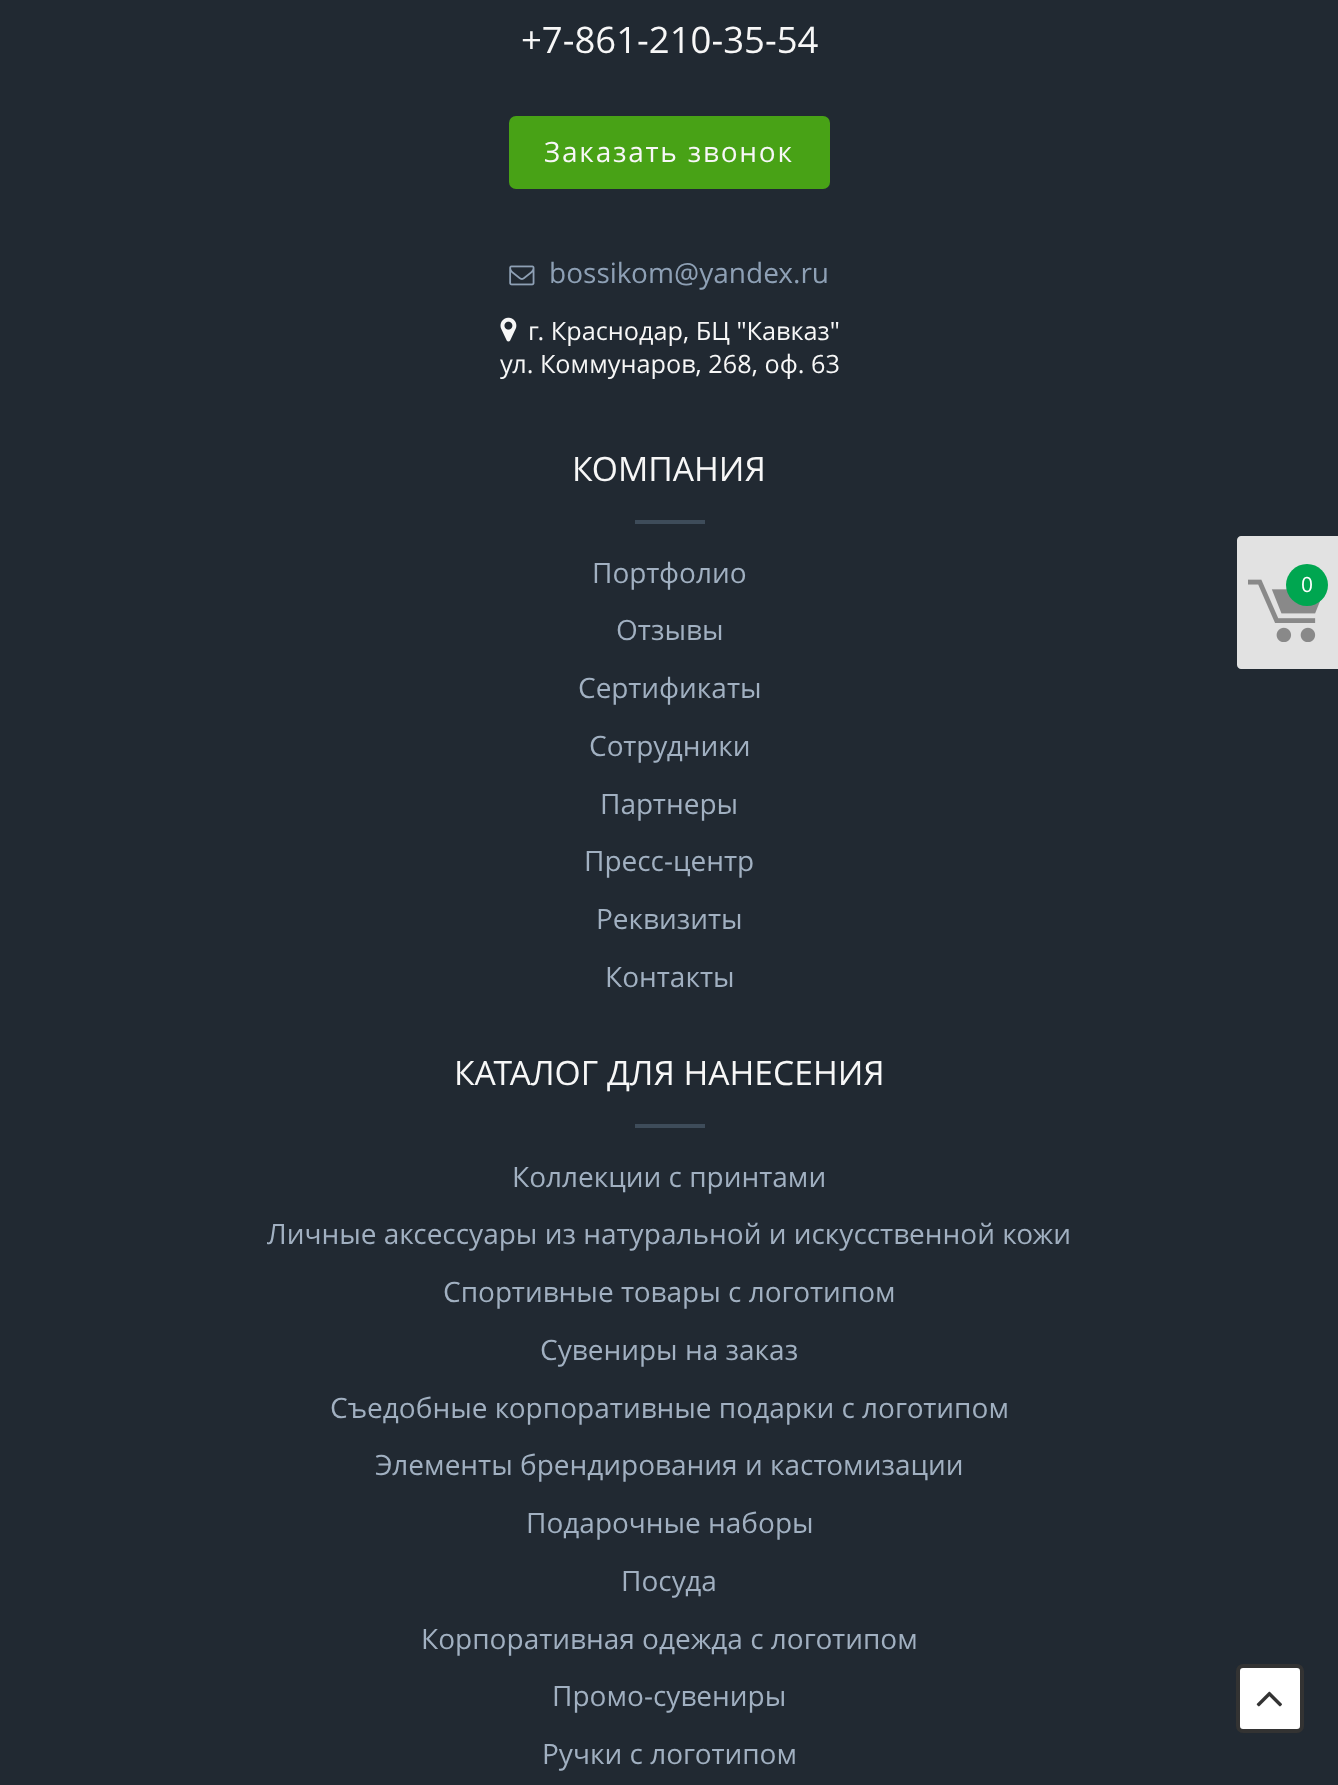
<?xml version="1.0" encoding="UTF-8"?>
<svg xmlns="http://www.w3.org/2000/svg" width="1338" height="1785">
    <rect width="100%" height="100%" fill="#212932"/>
    <text x="521" y="53" font-family="Open Sans" font-size="36.5" fill="#F7F7F7">+7-861-210-35-54</text>
    <rect x="509" y="116" width="321" height="73" rx="7" fill="#48A216"/>
    <text x="544" y="162" font-family="Open Sans" font-size="28" letter-spacing="1.75" fill="#F7F7F7">Заказать звонок</text>
    <image x="509" y="265" width="26" height="21" href="img_01.png"/>
    <text x="549" y="283" font-family="Open Sans" font-size="28" fill="#8EA0B5">bossikom@yandex.ru</text>
    <image x="500" y="317" width="17" height="25" href="img_02.png"/>
    <text x="528" y="340" font-family="Open Sans" font-size="25.25" fill="#F7F7F7">г. Краснодар, БЦ "Кавказ"</text>
    <text x="500" y="373" font-family="Open Sans" font-size="25.25" fill="#F7F7F7">ул. Коммунаров, 268, оф. 63</text>
    <text x="572" y="481" font-family="Open Sans" font-size="33.6" fill="#F7F7F7">КОМПАНИЯ</text>
    <rect x="635" y="520" width="70" height="4" fill="#3E4C5A"/>
    <text x="592" y="583" font-family="Open Sans" font-size="28" fill="#A1B0C1">Портфолио</text>
    <text x="616" y="640" font-family="Open Sans" font-size="28" fill="#A1B0C1">Отзывы</text>
    <text x="578" y="698" font-family="Open Sans" font-size="28" fill="#A1B0C1">Сертификаты</text>
    <text x="589" y="756" font-family="Open Sans" font-size="28" fill="#A1B0C1">Сотрудники</text>
    <text x="600" y="814" font-family="Open Sans" font-size="28" fill="#A1B0C1">Партнеры</text>
    <text x="584" y="871" font-family="Open Sans" font-size="28" fill="#A1B0C1">Пресс-центр</text>
    <text x="596" y="929" font-family="Open Sans" font-size="28" fill="#A1B0C1">Реквизиты</text>
    <text x="605" y="987" font-family="Open Sans" font-size="28" fill="#A1B0C1">Контакты</text>
    <text x="454" y="1085" font-family="Open Sans" font-size="33.6" fill="#F7F7F7">КАТАЛОГ ДЛЯ НАНЕСЕНИЯ</text>
    <rect x="635" y="1124" width="70" height="4" fill="#3E4C5A"/>
    <text x="512" y="1187" font-family="Open Sans" font-size="28" fill="#A1B0C1">Коллекции с принтами</text>
    <text x="267" y="1244" font-family="Open Sans" font-size="28" fill="#A1B0C1">Личные аксессуары из натуральной и искусственной кожи</text>
    <text x="443" y="1302" font-family="Open Sans" font-size="28" fill="#A1B0C1">Спортивные товары с логотипом</text>
    <text x="540" y="1360" font-family="Open Sans" font-size="28" fill="#A1B0C1">Сувениры на заказ</text>
    <text x="330" y="1418" font-family="Open Sans" font-size="28" fill="#A1B0C1">Съедобные корпоративные подарки с логотипом</text>
    <text x="375" y="1475" font-family="Open Sans" font-size="28" fill="#A1B0C1">Элементы брендирования и кастомизации</text>
    <text x="526" y="1533" font-family="Open Sans" font-size="28" fill="#A1B0C1">Подарочные наборы</text>
    <text x="621" y="1591" font-family="Open Sans" font-size="28" fill="#A1B0C1">Посуда</text>
    <text x="421" y="1649" font-family="Open Sans" font-size="28" fill="#A1B0C1">Корпоративная одежда с логотипом</text>
    <text x="552" y="1706" font-family="Open Sans" font-size="28" fill="#A1B0C1">Промо-сувениры</text>
    <text x="542" y="1764" font-family="Open Sans" font-size="28" fill="#A1B0C1">Ручки с логотипом</text>
    <path d="M 1241 536 H 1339 V 669 H 1241 C 1239 669 1237 667 1237 665 V 540 C 1237 538 1239 536 1241 536 Z" fill="#E2E2E2"/>
    <image x="1248" y="579" width="73" height="63" href="img_03.png"/>
    <circle cx="1307" cy="585" r="21" fill="#00A650"/>
    <text x="1301" y="592" font-family="Open Sans" font-size="21" fill="#FFFFFF">0</text>
    <rect x="1238" y="1666" width="64" height="65" rx="5" fill="#FFFFFF" stroke="#333333" stroke-width="4"/>
    <image x="1256" y="1691" width="26" height="16" href="img_04.png"/>
</svg>
